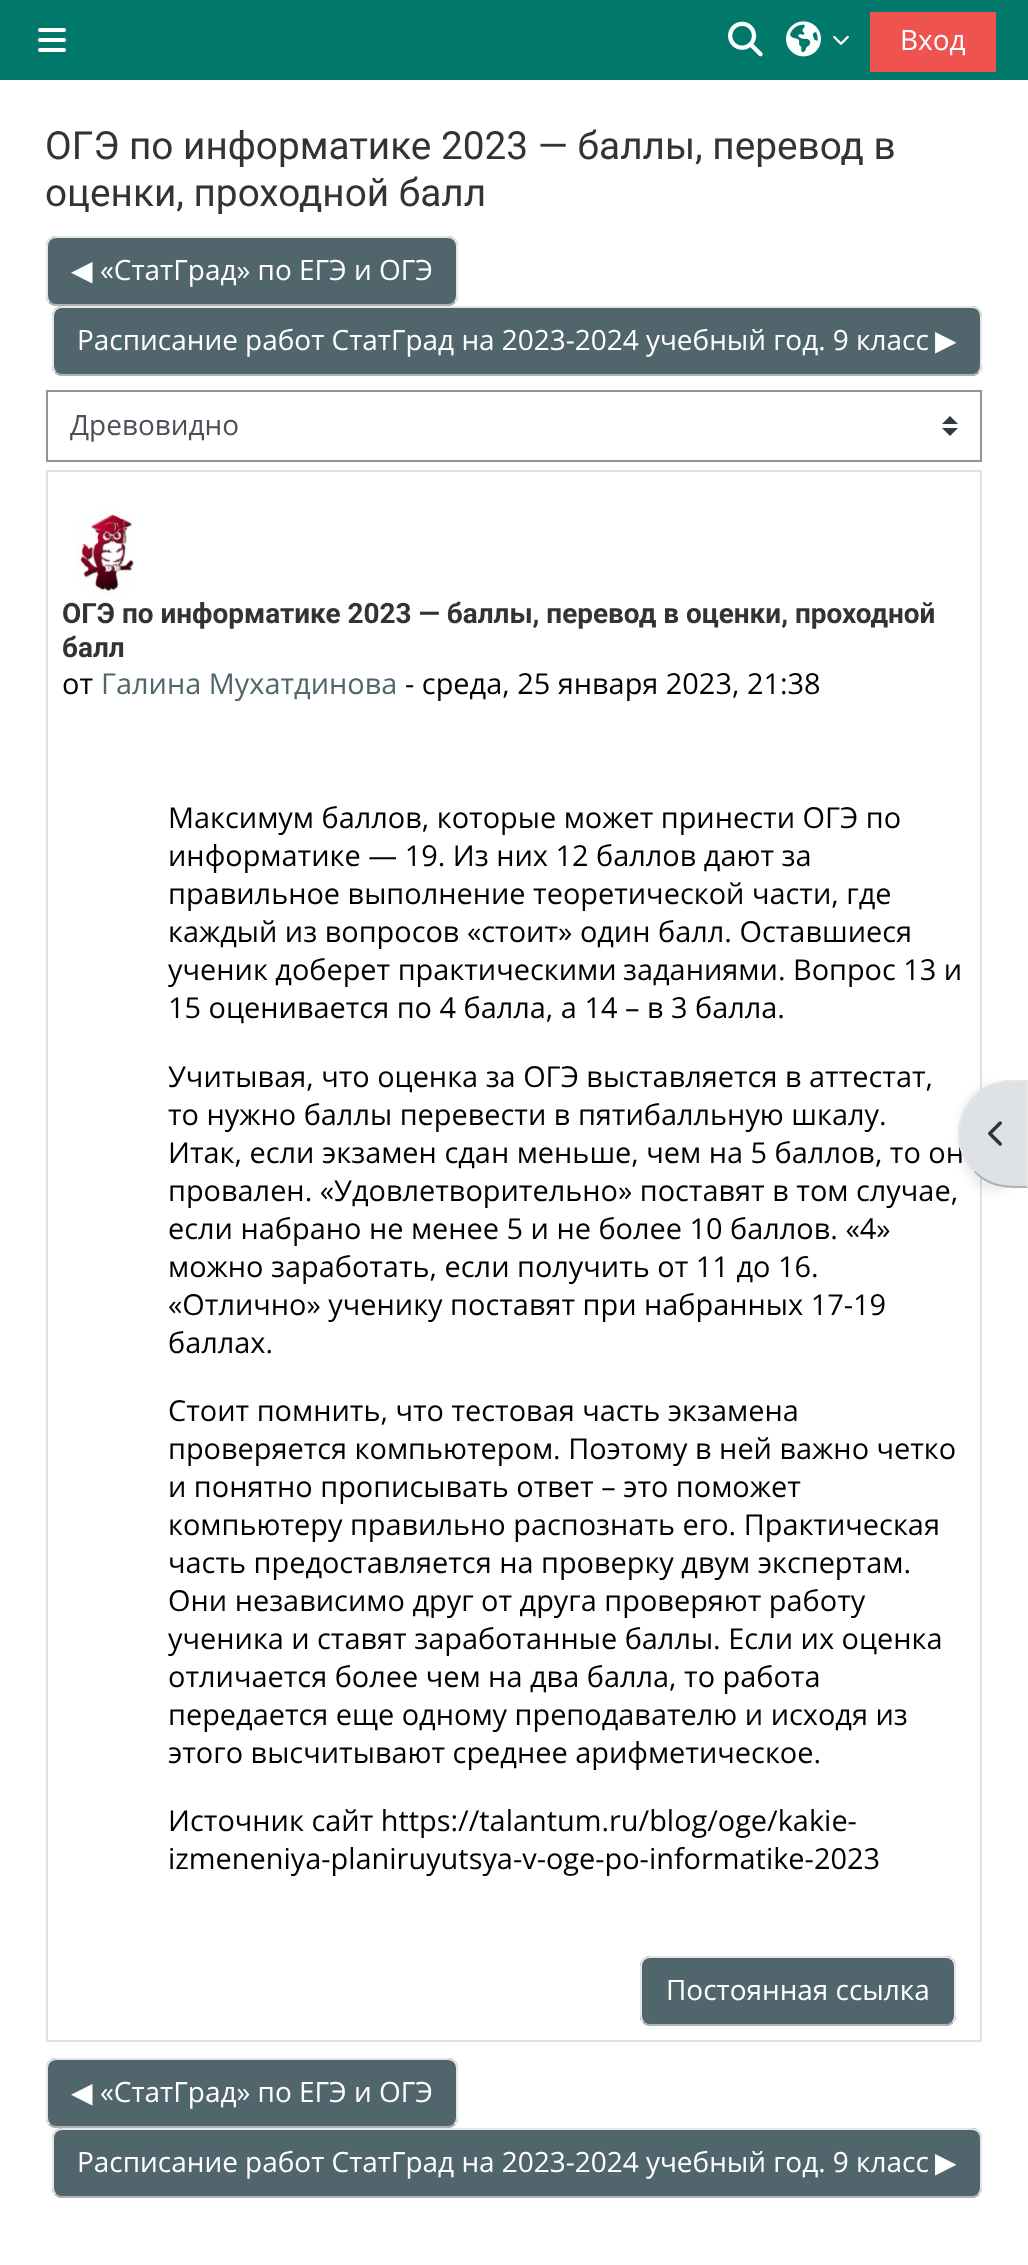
<?xml version="1.0" encoding="UTF-8"?>
<svg xmlns="http://www.w3.org/2000/svg" width="1028" height="2265">
    <defs>
        <clipPath id="clip1"><rect x="168" y="768" width="798" height="1258"/></clipPath>
        <filter id="blur1" x="-50%" y="-200%" width="200%" height="500%"><feGaussianBlur stdDeviation="4"/></filter>
    </defs>
    <rect width="100%" height="100%" fill="#FFFFFF"/>
    <rect x="0" y="0" width="1028" height="80" fill="#00796B"/>
    <image x="38" y="28" width="28" height="24" href="img_01.png"/>
    <image x="728" y="21" width="35" height="36" href="img_02.png"/>
    <image x="786" y="21" width="35" height="36" href="img_03.png"/>
    <image x="833" y="35" width="16" height="10" href="img_04.png"/>
    <rect x="870" y="12" width="126" height="60" fill="#EF5350"/>
    <text x="900" y="50" font-family="Open Sans" font-size="28" fill="#FFFFFF">Вход</text>
    <text font-family="Roboto" font-size="38.75" fill="#333333">
        <tspan x="45" y="159">ОГЭ по информатике 2023 — баллы, перевод в</tspan>
        <tspan x="45" y="206">оценки, проходной балл</tspan>
    </text>
    <rect x="46" y="236" width="412" height="70" rx="10" fill="#51666C"/>
    <path d="M 454.5 302.5 C 452.5 304 450.5 305 448 305 H 56 C 53.5 305 51.5 304 49.5 302.5" fill="none" stroke="#B3B3B3" stroke-width="2"/>
    <path d="M 49.5 302.5 C 48 300.5 47 298.5 47 296 V 246 C 47 243.5 48 241.5 49.5 239.5 C 51.5 238 53.5 237 56 237 H 448 C 450.5 237 452.5 238 454.5 239.5 C 456 241.5 457 243.5 457 246 V 296 C 457 298.5 456 300.5 454.5 302.5" fill="none" stroke="#E6E6E6" stroke-width="2"/>
    <text x="71" y="280" font-family="DejaVu Sans" font-size="27.95" fill="#FFFFFF">◀︎</text>
    <text x="100" y="280" font-family="Open Sans" font-size="27.95" fill="#FFFFFF">«СтатГрад» по ЕГЭ и ОГЭ</text>
    <rect x="52" y="306" width="930" height="70" rx="10" fill="#51666C"/>
    <path d="M 978.5 372.5 C 976.5 374 974.5 375 972 375 H 62 C 59.5 375 57.5 374 55.5 372.5" fill="none" stroke="#B3B3B3" stroke-width="2"/>
    <path d="M 55.5 372.5 C 54 370.5 53 368.5 53 366 V 316 C 53 313.5 54 311.5 55.5 309.5 C 57.5 308 59.5 307 62 307 H 972 C 974.5 307 976.5 308 978.5 309.5 C 980 311.5 981 313.5 981 316 V 366 C 981 368.5 980 370.5 978.5 372.5" fill="none" stroke="#E6E6E6" stroke-width="2"/>
    <text x="77" y="350" font-family="Open Sans" font-size="27.95" fill="#FFFFFF">Расписание работ СтатГрад на 2023-2024 учебный год. 9 класс</text>
    <text x="935" y="350" font-family="DejaVu Sans" font-size="27.95" fill="#FFFFFF">▶︎</text>
    <path d="M 950 416 L 942 424 H 958 Z M 950 436 L 942 428 H 958 Z" fill="#343A40"/>
    <rect x="47" y="391" width="934" height="70" fill="none" stroke="#8F959E" stroke-width="2"/>
    <text x="70" y="435" font-family="Open Sans" font-size="27.95" fill="#495057">Древовидно</text>
    <rect x="47" y="471" width="934" height="1570" fill="none" stroke="#DEE2E6" stroke-width="2"/>
    <image x="76" y="508" width="58" height="86" href="img_05.png"/>
    <text font-family="Roboto" font-size="27.95" font-weight="700" fill="#333333">
        <tspan x="62" y="623">ОГЭ по информатике 2023 — баллы, перевод в оценки, проходной</tspan>
        <tspan x="62" y="657">балл</tspan>
    </text>
    <text x="62" y="694" font-family="Open Sans" font-size="28.9" fill="#000000">от</text>
    <text x="101" y="694" font-family="Open Sans" font-size="28.9" fill="#51666C">Галина Мухатдинова</text>
    <text x="405" y="694" font-family="Open Sans" font-size="28.9" fill="#000000">- среда, 25 января 2023, 21:38</text>
    <text font-family="Open Sans" font-size="28.9" fill="#000000">
        <tspan x="168" y="828">Максимум баллов, которые может принести ОГЭ по</tspan>
        <tspan x="168" y="866">информатике — 19. Из них 12 баллов дают за</tspan>
        <tspan x="168" y="904">правильное выполнение теоретической части, где</tspan>
        <tspan x="168" y="942">каждый из вопросов «стоит» один балл. Оставшиеся</tspan>
    </text>
    <g clip-path="url(#clip1)">
        <text x="168" y="980" font-family="Open Sans" font-size="28.9" fill="#000000">ученик доберет практическими</text>
    </g>
    <text x="623" y="980" font-family="Open Sans" font-size="28.9" fill="#000000">заданиями. Вопрос 13 и</text>
    <text x="168" y="1018" font-family="Open Sans" font-size="28.9" fill="#000000">15 оценивается по 4 балла, а 14 – в 3 балла.</text>
    <text font-family="Open Sans" font-size="28.9" fill="#000000">
        <tspan x="168" y="1087">Учитывая, что оценка за ОГЭ выставляется в аттестат,</tspan>
        <tspan x="168" y="1125">то нужно баллы перевести в пятибалльную шкалу.</tspan>
        <tspan x="168" y="1163">Итак, если экзамен сдан меньше, чем на 5 баллов, то он</tspan>
        <tspan x="168" y="1201">провален. «Удовлетворительно» поставят в том случае,</tspan>
        <tspan x="168" y="1239">если набрано не менее 5 и не более 10 баллов. «4»</tspan>
        <tspan x="168" y="1277">можно заработать, если получить от 11 до 16.</tspan>
        <tspan x="168" y="1315">«Отлично» ученику поставят при набранных 17-19</tspan>
        <tspan x="168" y="1353">баллах.</tspan>
    </text>
    <text font-family="Open Sans" font-size="28.9" fill="#000000">
        <tspan x="168" y="1421">Стоит помнить, что тестовая часть экзамена</tspan>
        <tspan x="168" y="1459">проверяется компьютером. Поэтому в ней важно четко</tspan>
        <tspan x="168" y="1497">и понятно прописывать ответ – это поможет</tspan>
        <tspan x="168" y="1535">компьютеру правильно распознать его. Практическая</tspan>
        <tspan x="168" y="1573">часть предоставляется на проверку двум экспертам.</tspan>
        <tspan x="168" y="1611">Они независимо друг от друга проверяют работу</tspan>
    </text>
    <g clip-path="url(#clip1)">
        <text x="168" y="1649" font-family="Open Sans" font-size="28.9" fill="#000000">ученика и</text>
    </g>
    <text x="317" y="1649" font-family="Open Sans" font-size="28.9" fill="#000000">ставят заработанные баллы. Если их оценка</text>
    <text font-family="Open Sans" font-size="28.9" fill="#000000">
        <tspan x="168" y="1687">отличается более чем на два балла, то работа</tspan>
        <tspan x="168" y="1725">передается еще одному преподавателю и исходя из</tspan>
        <tspan x="168" y="1763">этого высчитывают среднее арифметическое.</tspan>
    </text>
    <text font-family="Open Sans" font-size="28.9" fill="#000000">
        <tspan x="168" y="1831">Источник сайт https://talantum.ru/blog/oge/kakie-</tspan>
        <tspan x="168" y="1869">izmeneniya-planiruyutsya-v-oge-po-informatike-2023</tspan>
    </text>
    <rect x="640" y="1956" width="316" height="70" rx="10" fill="#51666C"/>
    <path d="M 952.5 2022.5 C 950.5 2024 948.5 2025 946 2025 H 650 C 647.5 2025 645.5 2024 643.5 2022.5" fill="none" stroke="#B3B3B3" stroke-width="2"/>
    <path d="M 643.5 2022.5 C 642 2020.5 641 2018.5 641 2016 V 1966 C 641 1963.5 642 1961.5 643.5 1959.5 C 645.5 1958 647.5 1957 650 1957 H 946 C 948.5 1957 950.5 1958 952.5 1959.5 C 954 1961.5 955 1963.5 955 1966 V 2016 C 955 2018.5 954 2020.5 952.5 2022.5" fill="none" stroke="#E6E6E6" stroke-width="2"/>
    <text x="666" y="2000" font-family="Open Sans" font-size="27.95" fill="#FFFFFF">Постоянная ссылка</text>
    <rect x="46" y="2058" width="412" height="70" rx="10" fill="#51666C"/>
    <path d="M 454.5 2124.5 C 452.5 2126 450.5 2127 448 2127 H 56 C 53.5 2127 51.5 2126 49.5 2124.5" fill="none" stroke="#B3B3B3" stroke-width="2"/>
    <path d="M 49.5 2124.5 C 48 2122.5 47 2120.5 47 2118 V 2068 C 47 2065.5 48 2063.5 49.5 2061.5 C 51.5 2060 53.5 2059 56 2059 H 448 C 450.5 2059 452.5 2060 454.5 2061.5 C 456 2063.5 457 2065.5 457 2068 V 2118 C 457 2120.5 456 2122.5 454.5 2124.5" fill="none" stroke="#E6E6E6" stroke-width="2"/>
    <text x="71" y="2102" font-family="DejaVu Sans" font-size="27.95" fill="#FFFFFF">◀︎</text>
    <text x="100" y="2102" font-family="Open Sans" font-size="27.95" fill="#FFFFFF">«СтатГрад» по ЕГЭ и ОГЭ</text>
    <rect x="52" y="2128" width="930" height="70" rx="10" fill="#51666C"/>
    <path d="M 978.5 2194.5 C 976.5 2196 974.5 2197 972 2197 H 62 C 59.5 2197 57.5 2196 55.5 2194.5" fill="none" stroke="#B3B3B3" stroke-width="2"/>
    <path d="M 55.5 2194.5 C 54 2192.5 53 2190.5 53 2188 V 2138 C 53 2135.5 54 2133.5 55.5 2131.5 C 57.5 2130 59.5 2129 62 2129 H 972 C 974.5 2129 976.5 2130 978.5 2131.5 C 980 2133.5 981 2135.5 981 2138 V 2188 C 981 2190.5 980 2192.5 978.5 2194.5" fill="none" stroke="#E6E6E6" stroke-width="2"/>
    <text x="77" y="2172" font-family="Open Sans" font-size="27.95" fill="#FFFFFF">Расписание работ СтатГрад на 2023-2024 учебный год. 9 класс</text>
    <text x="935" y="2172" font-family="DejaVu Sans" font-size="27.95" fill="#FFFFFF">▶︎</text>
    <rect x="958" y="1084" width="70" height="108" rx="54" fill="#000000" fill-opacity="0.07" filter="url(#blur1)"/>
    <path d="M 1012 1080 H 1028 V 1188 H 1012 C 982 1188 958 1164 958 1134 C 958 1104 982 1080 1012 1080 Z" fill="#DEE2E6"/>
    <path d="M 1012 1080 C 996 1080 983 1086 974 1096 L 975 1097 C 990 1082 1006 1082 1026 1082 L 1028 1080 Z" fill="#E6E6E6"/>
    <path d="M 1028 1080 L 1026 1082 V 1186 L 1028 1188 Z" fill="#E6E6E6"/>
    <path d="M 1028 1188 C 1007 1188 990 1189 974 1172 L 975 1171 C 991 1186 1006 1186 1026 1186 Z" fill="#B3B3B3"/>
    <path d="M 974 1096 C 954 1116 952 1151 974 1172 L 975 1171 C 955 1151 956 1117 975 1097 Z" fill="#E6E6E6"/>
    <image x="988" y="1121" width="14" height="25" href="img_06.png"/>
</svg>
